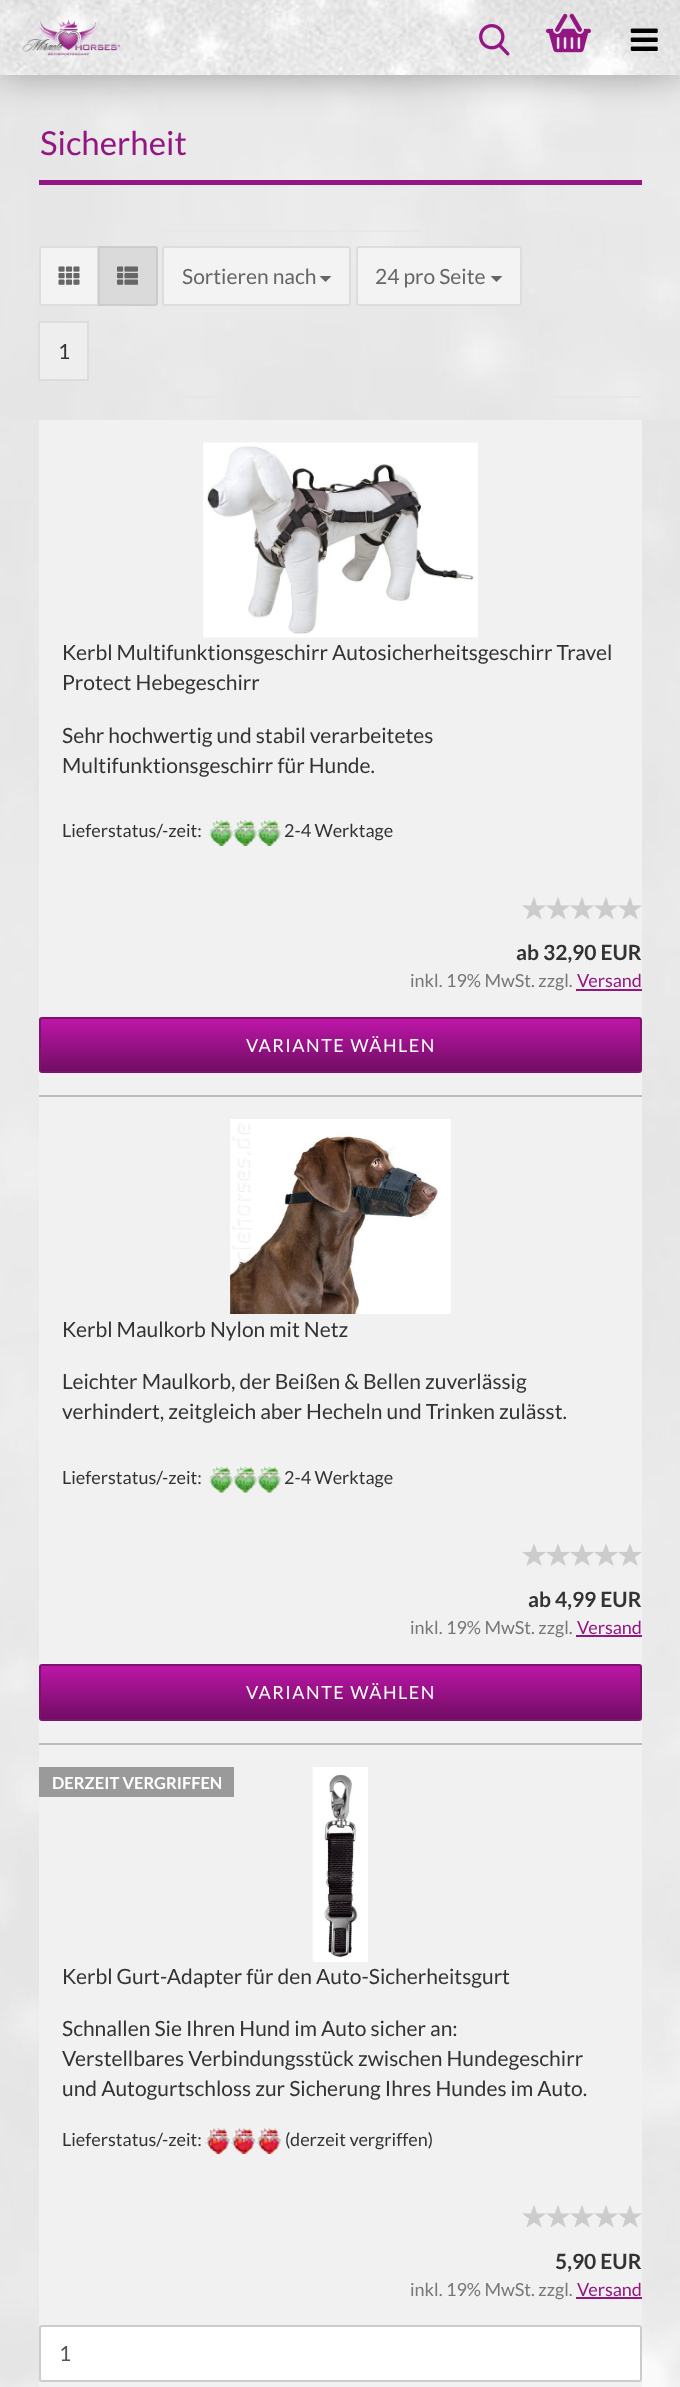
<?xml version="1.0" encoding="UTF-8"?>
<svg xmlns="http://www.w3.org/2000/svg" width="680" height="2387">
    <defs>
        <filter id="blur1" x="-50%" y="-200%" width="200%" height="500%"><feGaussianBlur stdDeviation="19"/></filter>
        <linearGradient id="g1" gradientUnits="userSpaceOnUse" x1="341" y1="1019" x2="341" y2="1071"><stop offset="0" stop-color="#BE16A8"/><stop offset="1" stop-color="#710D64"/></linearGradient>
        <linearGradient id="g2" gradientUnits="userSpaceOnUse" x1="341" y1="1665" x2="341" y2="1719"><stop offset="0" stop-color="#BE16A8"/><stop offset="1" stop-color="#710D64"/></linearGradient>
    </defs>
    <rect width="100%" height="100%" fill="#FFFFFF"/>
    <image x="0" y="75" width="680" height="2312" href="img_01.png"/>
    <rect x="0" y="0" width="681" height="75" fill="#000000" fill-opacity="0.35" filter="url(#blur1)"/>
    <image x="0" y="0" width="680" height="75" href="img_02.png"/>
    <image x="22" y="19" width="98" height="37" href="img_03.png"/>
    <image x="479" y="24" width="31" height="32" href="img_04.png"/>
    <image x="546" y="13" width="45" height="40" href="img_05.png"/>
    <image x="630" y="28" width="28" height="23" href="img_06.png"/>
    <rect x="39" y="180" width="603" height="5" fill="#931683"/>
    <text x="40" y="155" font-family="Lato" font-size="33" fill="#931683">Sicherheit</text>
    <rect x="166" y="230" width="255" height="2" fill="#E7E7E7"/>
    <rect x="187" y="396" width="455" height="2" fill="#E7E7E7"/>
    <path d="M 42 247 H 98 V 305 H 42 C 41 305 40 304 40 303 V 249 C 40 248 41 247 42 247 Z" fill="#F3F3F3" stroke="#DDDDDD" stroke-width="2"/>
    <image x="58" y="266" width="22" height="19" href="img_07.png"/>
    <path d="M 99 247 H 155 C 156 247 157 248 157 249 V 303 C 157 304 156 305 155 305 H 99 Z" fill="#DADADA" stroke="#CCCCCC" stroke-width="2"/>
    <image x="117" y="266" width="21" height="19" href="img_08.png"/>
    <rect x="163" y="247" width="187" height="58" rx="2" fill="#F3F3F3" stroke="#DDDDDD" stroke-width="2"/>
    <text x="182" y="284" font-family="Lato" font-size="21" fill="#666666">Sortieren nach</text>
    <path d="M 319.5 276 H 331.5 L 325.5 282 Z" fill="#666666"/>
    <rect x="357" y="247" width="164" height="58" rx="2" fill="#F3F3F3" stroke="#DDDDDD" stroke-width="2"/>
    <text x="375" y="284" font-family="Lato" font-size="21" fill="#666666">24 pro Seite</text>
    <path d="M 490.5 276 H 502.5 L 496.5 282 Z" fill="#666666"/>
    <rect x="39" y="322" width="49" height="58" fill="#EEEEEE" stroke="#DDDDDD" stroke-width="2"/>
    <text x="58" y="359" font-family="Lato" font-size="21" fill="#333333">1</text>
    <rect x="39" y="420" width="603" height="675" fill="#F1F1F1"/>
    <rect x="39" y="1095" width="603" height="2" fill="#BBBBBB"/>
    <image x="203" y="442" width="275" height="196" href="img_09.png"/>
    <text font-family="Lato" font-size="21" fill="#333333">
        <tspan x="62" y="660">Kerbl Multifunktionsgeschirr Autosicherheitsgeschirr Travel</tspan>
        <tspan x="62" y="690">Protect Hebegeschirr</tspan>
    </text>
    <text font-family="Lato" font-size="21" fill="#333333">
        <tspan x="62" y="743">Sehr hochwertig und stabil verarbeitetes</tspan>
        <tspan x="62" y="773">Multifunktionsgeschirr für Hunde.</tspan>
    </text>
    <text x="62" y="837" font-family="Lato" font-size="18" fill="#333333">Lieferstatus/-zeit:</text>
    <image x="208" y="820" width="73" height="26" href="img_10.png"/>
    <text x="284" y="837" font-family="Lato" font-size="18" fill="#333333">2-4 Werktage</text>
    <image x="522" y="897" width="24" height="23" href="img_11.png"/>
    <image x="546" y="897" width="24" height="23" href="img_11.png"/>
    <image x="570" y="897" width="24" height="23" href="img_11.png"/>
    <image x="594" y="897" width="24" height="23" href="img_11.png"/>
    <image x="618" y="897" width="24" height="23" href="img_11.png"/>
    <text x="516" y="960" font-family="Lato" font-size="21" font-weight="700" fill="#333333">ab 32,90 EUR</text>
    <text x="410" y="987" font-family="Lato" font-size="18" fill="#777777">inkl. 19% MwSt. zzgl.</text>
    <text x="577" y="987" font-family="Lato" font-size="18" fill="#931683">Versand</text>
    <rect x="576" y="989" width="66" height="2" fill="#931683"/>
    <rect x="41" y="1019" width="599" height="52" fill="url(#g1)"/>
    <rect x="40" y="1018" width="601" height="54" rx="2" fill="none" stroke="#7D136F" stroke-width="2"/>
    <text x="246" y="1052" font-family="Lato" font-size="18" letter-spacing="1.5" fill="#FFFFFF">VARIANTE WÄHLEN</text>
    <rect x="39" y="1097" width="603" height="646" fill="#F1F1F1"/>
    <rect x="39" y="1743" width="603" height="2" fill="#BBBBBB"/>
    <image x="230" y="1119" width="221" height="195" href="img_12.png"/>
    <text x="62" y="1337" font-family="Lato" font-size="21" fill="#333333">Kerbl Maulkorb Nylon mit Netz</text>
    <text font-family="Lato" font-size="21" fill="#333333">
        <tspan x="62" y="1389">Leichter Maulkorb, der Beißen &amp; Bellen zuverlässig</tspan>
        <tspan x="62" y="1419">verhindert, zeitgleich aber Hecheln und Trinken zulässt.</tspan>
    </text>
    <text x="62" y="1484" font-family="Lato" font-size="18" fill="#333333">Lieferstatus/-zeit:</text>
    <image x="208" y="1466" width="73" height="27" href="img_13.png"/>
    <text x="284" y="1484" font-family="Lato" font-size="18" fill="#333333">2-4 Werktage</text>
    <image x="522" y="1543" width="24" height="23" href="img_14.png"/>
    <image x="546" y="1543" width="24" height="23" href="img_14.png"/>
    <image x="570" y="1543" width="24" height="23" href="img_14.png"/>
    <image x="594" y="1543" width="24" height="23" href="img_14.png"/>
    <image x="618" y="1543" width="24" height="23" href="img_14.png"/>
    <text x="528" y="1607" font-family="Lato" font-size="21" font-weight="700" fill="#333333">ab 4,99 EUR</text>
    <text x="410" y="1634" font-family="Lato" font-size="18" fill="#777777">inkl. 19% MwSt. zzgl.</text>
    <text x="577" y="1634" font-family="Lato" font-size="18" fill="#931683">Versand</text>
    <rect x="576" y="1635" width="66" height="2" fill="#931683"/>
    <rect x="41" y="1666" width="599" height="53" fill="url(#g2)"/>
    <rect x="40" y="1665" width="601" height="55" rx="2" fill="none" stroke="#7D136F" stroke-width="2"/>
    <text x="246" y="1699" font-family="Lato" font-size="18" letter-spacing="1.5" fill="#FFFFFF">VARIANTE WÄHLEN</text>
    <rect x="39" y="1745" width="603" height="642" fill="#F1F1F1"/>
    <rect x="39" y="1767" width="195" height="30" fill="#9A9A9A"/>
    <text x="52" y="1789" font-family="Lato" font-size="16.5" font-weight="700" fill="#FFFFFF">DERZEIT VERGRIFFEN</text>
    <image x="312" y="1767" width="56" height="195" href="img_15.png"/>
    <text x="62" y="1984" font-family="Lato" font-size="21" fill="#333333">Kerbl Gurt-Adapter für den Auto-Sicherheitsgurt</text>
    <text font-family="Lato" font-size="21" fill="#333333">
        <tspan x="62" y="2036">Schnallen Sie Ihren Hund im Auto sicher an:</tspan>
        <tspan x="62" y="2066">Verstellbares Verbindungsstück zwischen Hundegeschirr</tspan>
        <tspan x="62" y="2096">und Autogurtschloss zur Sicherung Ihres Hundes im Auto.</tspan>
    </text>
    <text x="62" y="2146" font-family="Lato" font-size="18" fill="#333333">Lieferstatus/-zeit:</text>
    <image x="205" y="2128" width="76" height="26" href="img_16.png"/>
    <text x="285" y="2146" font-family="Lato" font-size="18" fill="#333333">(derzeit vergriffen)</text>
    <image x="522" y="2205" width="24" height="23" href="img_11.png"/>
    <image x="546" y="2205" width="24" height="23" href="img_11.png"/>
    <image x="570" y="2205" width="24" height="23" href="img_11.png"/>
    <image x="594" y="2205" width="24" height="23" href="img_11.png"/>
    <image x="618" y="2205" width="24" height="23" href="img_11.png"/>
    <text x="555" y="2269" font-family="Lato" font-size="21" font-weight="700" fill="#333333">5,90 EUR</text>
    <text x="410" y="2296" font-family="Lato" font-size="18" fill="#777777">inkl. 19% MwSt. zzgl.</text>
    <text x="577" y="2296" font-family="Lato" font-size="18" fill="#931683">Versand</text>
    <rect x="576" y="2297" width="66" height="2" fill="#931683"/>
    <rect x="40" y="2326" width="601" height="55" rx="2" fill="#FFFFFF" stroke="#CCCCCC" stroke-width="2"/>
    <text x="59" y="2361" font-family="Lato" font-size="21" fill="#555555">1</text>
</svg>
